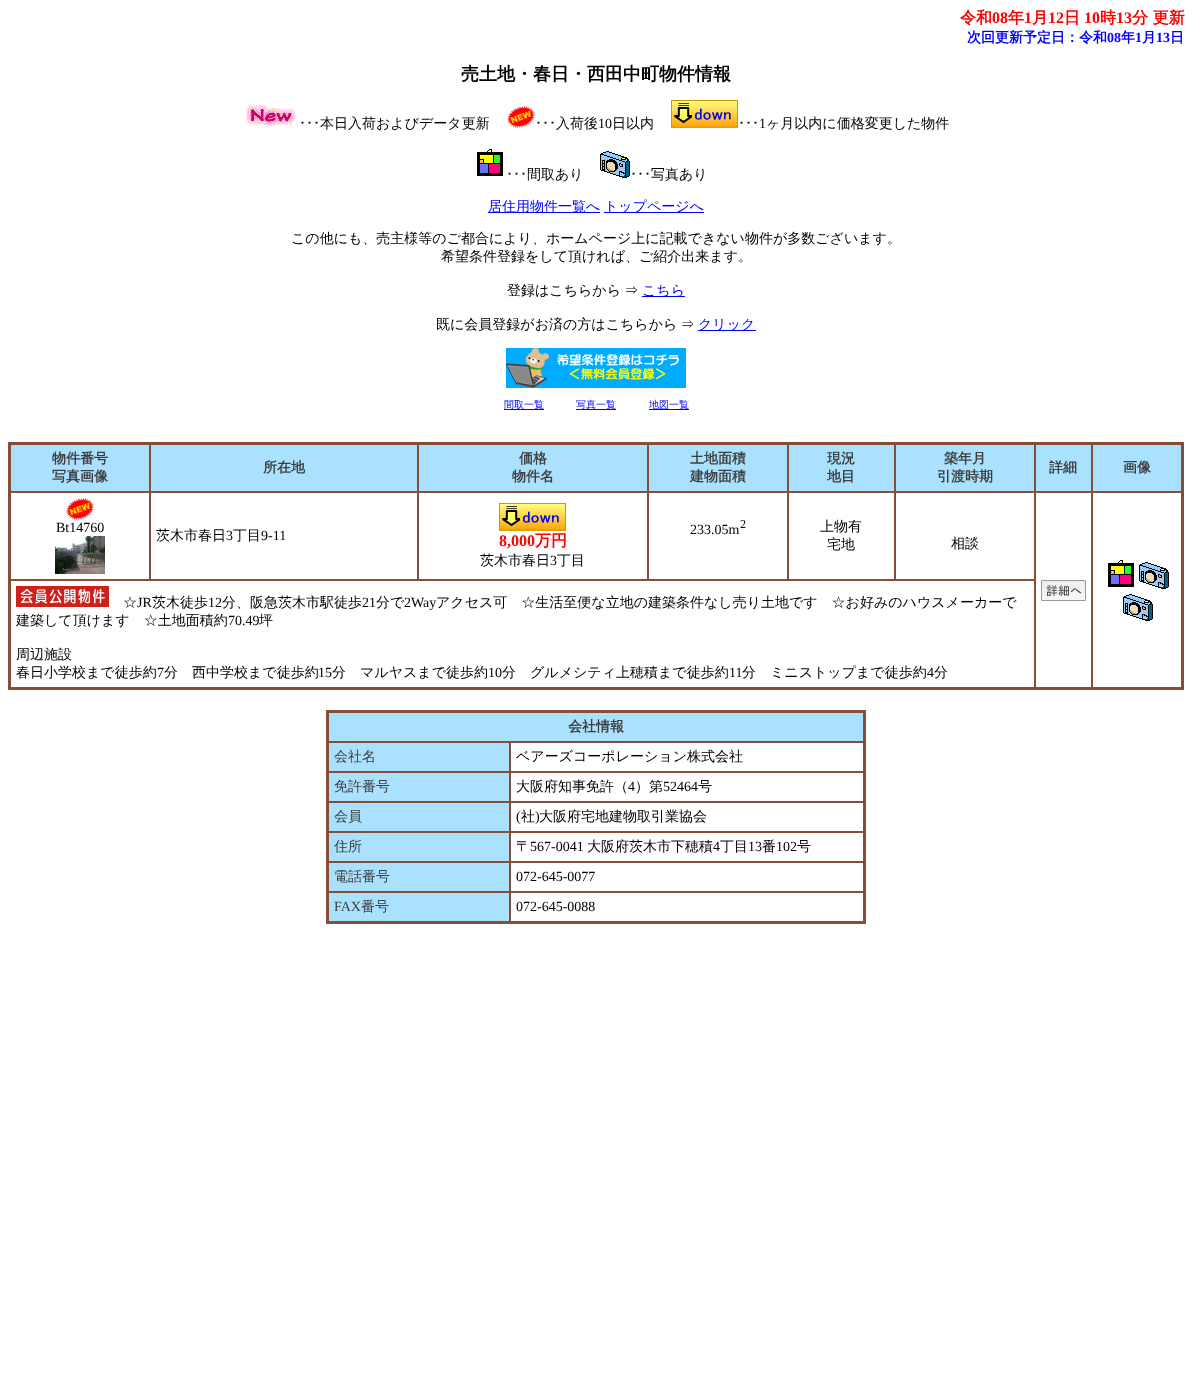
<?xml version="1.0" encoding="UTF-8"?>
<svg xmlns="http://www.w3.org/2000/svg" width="1192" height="1388">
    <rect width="100%" height="100%" fill="#FFFFFF"/>
    <text x="960" y="23" font-family="WenQuanYi Zen Hei" font-size="16" font-weight="700" fill="#FF0000">令和</text>
    <text x="992" y="23" font-family="Liberation Serif" font-size="16" font-weight="700" fill="#FF0000">08</text>
    <text x="1008" y="23" font-family="WenQuanYi Zen Hei" font-size="16" font-weight="700" fill="#FF0000">年</text>
    <text x="1024" y="23" font-family="Liberation Serif" font-size="16" font-weight="700" fill="#FF0000">1</text>
    <text x="1032" y="23" font-family="WenQuanYi Zen Hei" font-size="16" font-weight="700" fill="#FF0000">月</text>
    <text x="1048" y="23" font-family="Liberation Serif" font-size="16" font-weight="700" fill="#FF0000">12</text>
    <text x="1064" y="23" font-family="WenQuanYi Zen Hei" font-size="16" font-weight="700" fill="#FF0000">日</text>
    <text x="1084" y="23" font-family="Liberation Serif" font-size="16" font-weight="700" fill="#FF0000">10</text>
    <text x="1100" y="23" font-family="WenQuanYi Zen Hei" font-size="16" font-weight="700" fill="#FF0000">時</text>
    <text x="1116" y="23" font-family="Liberation Serif" font-size="16" font-weight="700" fill="#FF0000">13</text>
    <text x="1132" y="23" font-family="WenQuanYi Zen Hei" font-size="16" font-weight="700" fill="#FF0000">分 更新</text>
    <text x="967" y="42" font-family="WenQuanYi Zen Hei" font-size="14" font-weight="700" fill="#0000FF">次回更新予定日：令和</text>
    <text x="1107" y="42" font-family="Liberation Serif" font-size="14" font-weight="700" fill="#0000FF">08</text>
    <text x="1121" y="42" font-family="WenQuanYi Zen Hei" font-size="14" font-weight="700" fill="#0000FF">年</text>
    <text x="1135" y="42" font-family="Liberation Serif" font-size="14" font-weight="700" fill="#0000FF">1</text>
    <text x="1142" y="42" font-family="WenQuanYi Zen Hei" font-size="14" font-weight="700" fill="#0000FF">月</text>
    <text x="1156" y="42" font-family="Liberation Serif" font-size="14" font-weight="700" fill="#0000FF">13</text>
    <text x="1170" y="42" font-family="WenQuanYi Zen Hei" font-size="14" font-weight="700" fill="#0000FF">日</text>
    <text x="461" y="80" font-family="WenQuanYi Zen Hei" font-size="18" font-weight="700" fill="#000000">売土地・春日・西田中町物件情報</text>
    <image x="246" y="105" width="50" height="22" href="img_01.png"/>
    <text x="299" y="128" font-family="IPAPGothic" font-size="14" fill="#000000">･･･</text>
    <text x="320" y="128" font-family="WenQuanYi Zen Hei" font-size="14" font-weight="500" fill="#000000">本日入荷およびデータ更新</text>
    <image x="507" y="106" width="28" height="22" href="img_02.png"/>
    <text x="535" y="128" font-family="IPAPGothic" font-size="14" fill="#000000">･･･</text>
    <text x="556" y="128" font-family="WenQuanYi Zen Hei" font-size="14" font-weight="500" fill="#000000">入荷後</text>
    <text x="598" y="128" font-family="Liberation Serif" font-size="14" fill="#000000">10</text>
    <text x="612" y="128" font-family="WenQuanYi Zen Hei" font-size="14" font-weight="500" fill="#000000">日以内</text>
    <image x="671" y="100" width="67" height="28" href="img_03.png"/>
    <text x="738" y="128" font-family="IPAPGothic" font-size="14" fill="#000000">･･･</text>
    <text x="759" y="128" font-family="Liberation Serif" font-size="14" fill="#000000">1</text>
    <text x="766" y="128" font-family="WenQuanYi Zen Hei" font-size="14" font-weight="500" fill="#000000">ヶ月以内に価格変更した物件</text>
    <image x="477" y="149" width="26" height="27" href="img_04.png"/>
    <text x="506" y="179" font-family="IPAPGothic" font-size="14" fill="#000000">･･･</text>
    <text x="527" y="179" font-family="WenQuanYi Zen Hei" font-size="14" font-weight="500" fill="#000000">間取あり</text>
    <image x="600" y="151" width="30" height="27" href="img_05.png"/>
    <text x="630" y="179" font-family="IPAPGothic" font-size="14" fill="#000000">･･･</text>
    <text x="651" y="179" font-family="WenQuanYi Zen Hei" font-size="14" font-weight="500" fill="#000000">写真あり</text>
    <rect x="488" y="212" width="112" height="1" fill="#0000FF"/>
    <text x="488" y="211" font-family="WenQuanYi Zen Hei" font-size="14" font-weight="500" fill="#0000FF">居住用物件一覧へ</text>
    <rect x="604" y="212" width="100" height="1" fill="#0000FF"/>
    <text x="604" y="211" font-family="WenQuanYi Zen Hei" font-size="14" font-weight="500" fill="#0000FF">トップページへ</text>
    <text x="291" y="243" font-family="WenQuanYi Zen Hei" font-size="14" font-weight="500" fill="#000000">この他にも、売主様等のご都合により、ホームページ上に記載できない物件が多数ございます。</text>
    <text x="441" y="261" font-family="WenQuanYi Zen Hei" font-size="14" font-weight="500" fill="#000000">希望条件登録をして頂ければ、ご紹介出来ます。</text>
    <text x="507" y="295" word-spacing="-1" font-family="WenQuanYi Zen Hei" font-size="14" font-weight="500" fill="#000000">登録はこちらから ⇒</text>
    <rect x="642" y="296" width="43" height="1" fill="#0000FF"/>
    <text x="642" y="295" font-family="WenQuanYi Zen Hei" font-size="14" font-weight="500" fill="#0000FF">こちら</text>
    <text x="436" y="329" word-spacing="-1" font-family="WenQuanYi Zen Hei" font-size="14" font-weight="500" fill="#000000">既に会員登録がお済の方はこちらから ⇒</text>
    <rect x="698" y="330" width="58" height="1" fill="#0000FF"/>
    <text x="698" y="329" font-family="WenQuanYi Zen Hei" font-size="14" font-weight="500" fill="#0000FF">クリック</text>
    <image x="506" y="348" width="180" height="40" href="img_06.png"/>
    <rect x="504" y="409" width="40" height="1" fill="#0000FF"/>
    <text x="504" y="408" font-family="WenQuanYi Zen Hei" font-size="10" font-weight="500" fill="#0000FF">間取一覧</text>
    <rect x="576" y="409" width="40" height="1" fill="#0000FF"/>
    <text x="576" y="408" font-family="WenQuanYi Zen Hei" font-size="10" font-weight="500" fill="#0000FF">写真一覧</text>
    <rect x="649" y="409" width="40" height="1" fill="#0000FF"/>
    <text x="649" y="408" font-family="WenQuanYi Zen Hei" font-size="10" font-weight="500" fill="#0000FF">地図一覧</text>
    <rect x="9" y="443" width="1174" height="246" fill="none" stroke="#864D37" stroke-width="2"/>
    <rect x="10.5" y="444.5" width="139" height="47" fill="#AAE1FF" stroke="#864D37"/>
    <text font-family="WenQuanYi Zen Hei" font-size="14" font-weight="700" fill="#3F3F3F">
        <tspan x="52" y="463">物件番号</tspan>
        <tspan x="52" y="481">写真画像</tspan>
    </text>
    <rect x="150.5" y="444.5" width="267" height="47" fill="#AAE1FF" stroke="#864D37"/>
    <text x="263" y="472" font-family="WenQuanYi Zen Hei" font-size="14" font-weight="700" fill="#3F3F3F">所在地</text>
    <rect x="418.5" y="444.5" width="229" height="47" fill="#AAE1FF" stroke="#864D37"/>
    <text x="519" y="463" font-family="WenQuanYi Zen Hei" font-size="14" font-weight="700" fill="#3F3F3F">価格</text>
    <text x="512" y="481" font-family="WenQuanYi Zen Hei" font-size="14" font-weight="700" fill="#3F3F3F">物件名</text>
    <rect x="648.5" y="444.5" width="139" height="47" fill="#AAE1FF" stroke="#864D37"/>
    <text font-family="WenQuanYi Zen Hei" font-size="14" font-weight="700" fill="#3F3F3F">
        <tspan x="690" y="463">土地面積</tspan>
        <tspan x="690" y="481">建物面積</tspan>
    </text>
    <rect x="788.5" y="444.5" width="106" height="47" fill="#AAE1FF" stroke="#864D37"/>
    <text font-family="WenQuanYi Zen Hei" font-size="14" font-weight="700" fill="#3F3F3F">
        <tspan x="827" y="463">現況</tspan>
        <tspan x="827" y="481">地目</tspan>
    </text>
    <rect x="895.5" y="444.5" width="139" height="47" fill="#AAE1FF" stroke="#864D37"/>
    <text x="944" y="463" font-family="WenQuanYi Zen Hei" font-size="14" font-weight="700" fill="#3F3F3F">築年月</text>
    <text x="937" y="481" font-family="WenQuanYi Zen Hei" font-size="14" font-weight="700" fill="#3F3F3F">引渡時期</text>
    <rect x="1035.5" y="444.5" width="56" height="47" fill="#AAE1FF" stroke="#864D37"/>
    <text x="1049" y="472" font-family="WenQuanYi Zen Hei" font-size="14" font-weight="700" fill="#3F3F3F">詳細</text>
    <rect x="1092.5" y="444.5" width="89" height="47" fill="#AAE1FF" stroke="#864D37"/>
    <text x="1123" y="472" font-family="WenQuanYi Zen Hei" font-size="14" font-weight="700" fill="#3F3F3F">画像</text>
    <rect x="10.5" y="492.5" width="139" height="87" fill="none" stroke="#864D37"/>
    <image x="66" y="498" width="28" height="22" href="img_02.png"/>
    <text x="56" y="532" font-family="Liberation Serif" font-size="14" fill="#000000">Bt14760</text>
    <image x="55" y="536" width="50" height="38" href="img_07.png"/>
    <rect x="150.5" y="492.5" width="267" height="87" fill="none" stroke="#864D37"/>
    <text x="156" y="540" font-family="WenQuanYi Zen Hei" font-size="14" font-weight="500" fill="#000000">茨木市春日</text>
    <text x="226" y="540" font-family="Liberation Serif" font-size="14" fill="#000000">3</text>
    <text x="233" y="540" font-family="WenQuanYi Zen Hei" font-size="14" font-weight="500" fill="#000000">丁目</text>
    <text x="261" y="540" font-family="Liberation Serif" font-size="14" fill="#000000">9-11</text>
    <rect x="418.5" y="492.5" width="229" height="87" fill="none" stroke="#864D37"/>
    <image x="499" y="503" width="67" height="28" href="img_03.png"/>
    <text x="499" y="546" font-family="Liberation Serif" font-size="16" font-weight="700" fill="#FF0000">8,000</text>
    <text x="535" y="546" font-family="WenQuanYi Zen Hei" font-size="16" font-weight="700" fill="#FF0000">万円</text>
    <text x="480" y="565" font-family="WenQuanYi Zen Hei" font-size="14" font-weight="500" fill="#000000">茨木市春日</text>
    <text x="550" y="565" font-family="Liberation Serif" font-size="14" fill="#000000">3</text>
    <text x="557" y="565" font-family="WenQuanYi Zen Hei" font-size="14" font-weight="500" fill="#000000">丁目</text>
    <rect x="648.5" y="492.5" width="139" height="87" fill="none" stroke="#864D37"/>
    <text x="690" y="534" font-family="Liberation Serif" font-size="14" fill="#000000">233.05m</text>
    <text x="740" y="528" font-family="Liberation Serif" font-size="12" fill="#000000">2</text>
    <rect x="788.5" y="492.5" width="106" height="87" fill="none" stroke="#864D37"/>
    <text x="820" y="531" font-family="WenQuanYi Zen Hei" font-size="14" font-weight="500" fill="#000000">上物有</text>
    <text x="827" y="549" font-family="WenQuanYi Zen Hei" font-size="14" font-weight="500" fill="#000000">宅地</text>
    <rect x="895.5" y="492.5" width="139" height="87" fill="none" stroke="#864D37"/>
    <text x="951" y="548" font-family="WenQuanYi Zen Hei" font-size="14" font-weight="500" fill="#000000">相談</text>
    <rect x="1035.5" y="492.5" width="56" height="195" fill="none" stroke="#864D37"/>
    <image x="1041" y="580" width="45" height="21" href="img_08.png"/>
    <rect x="1092.5" y="492.5" width="89" height="195" fill="none" stroke="#864D37"/>
    <image x="1108" y="560" width="26" height="27" href="img_04.png"/>
    <image x="1139" y="562" width="30" height="27" href="img_05.png"/>
    <image x="1123" y="594" width="30" height="27" href="img_05.png"/>
    <rect x="10.5" y="580.5" width="1024" height="107" fill="none" stroke="#864D37"/>
    <image x="16" y="586" width="93" height="21" href="img_09.png"/>
    <text x="123" y="607" font-family="WenQuanYi Zen Hei" font-size="14" font-weight="500" fill="#000000">☆</text>
    <text x="137" y="607" font-family="Liberation Serif" font-size="14" fill="#000000">JR</text>
    <text x="152" y="607" font-family="WenQuanYi Zen Hei" font-size="14" font-weight="500" fill="#000000">茨木徒歩</text>
    <text x="208" y="607" font-family="Liberation Serif" font-size="14" fill="#000000">12</text>
    <text x="222" y="607" font-family="WenQuanYi Zen Hei" font-size="14" font-weight="500" fill="#000000">分、阪急茨木市駅徒歩</text>
    <text x="362" y="607" font-family="Liberation Serif" font-size="14" fill="#000000">21</text>
    <text x="376" y="607" font-family="WenQuanYi Zen Hei" font-size="14" font-weight="500" fill="#000000">分で</text>
    <text x="404" y="607" font-family="Liberation Serif" font-size="14" fill="#000000">2Way</text>
    <text x="436" y="607" font-family="WenQuanYi Zen Hei" font-size="14" font-weight="500" fill="#000000">アクセス可　☆生活至便な立地の建築条件なし売り土地です　☆お好みのハウスメーカーで</text>
    <text x="16" y="625" font-family="WenQuanYi Zen Hei" font-size="14" font-weight="500" fill="#000000">建築して頂けます　☆土地面積約</text>
    <text x="228" y="625" font-family="Liberation Serif" font-size="14" fill="#000000">70.49</text>
    <text x="259" y="625" font-family="WenQuanYi Zen Hei" font-size="14" font-weight="500" fill="#000000">坪</text>
    <text font-family="WenQuanYi Zen Hei" font-size="14" font-weight="500" fill="#000000">
        <tspan x="16" y="659">周辺施設</tspan>
        <tspan x="16" y="677">春日小学校まで徒歩約</tspan>
    </text>
    <text x="157" y="677" font-family="Liberation Serif" font-size="14" fill="#000000">7</text>
    <text x="164" y="677" font-family="WenQuanYi Zen Hei" font-size="14" font-weight="500" fill="#000000">分　西中学校まで徒歩約</text>
    <text x="318" y="677" font-family="Liberation Serif" font-size="14" fill="#000000">15</text>
    <text x="332" y="677" font-family="WenQuanYi Zen Hei" font-size="14" font-weight="500" fill="#000000">分　マルヤスまで徒歩約</text>
    <text x="488" y="677" font-family="Liberation Serif" font-size="14" fill="#000000">10</text>
    <text x="502" y="677" font-family="WenQuanYi Zen Hei" font-size="14" font-weight="500" fill="#000000">分　グルメシティ上穂積まで徒歩約</text>
    <text x="729" y="677" font-family="Liberation Serif" font-size="14" fill="#000000">11</text>
    <text x="742" y="677" font-family="WenQuanYi Zen Hei" font-size="14" font-weight="500" fill="#000000">分　ミニストップまで徒歩約</text>
    <text x="927" y="677" font-family="Liberation Serif" font-size="14" fill="#000000">4</text>
    <text x="934" y="677" font-family="WenQuanYi Zen Hei" font-size="14" font-weight="500" fill="#000000">分</text>
    <rect x="327" y="711" width="538" height="212" fill="none" stroke="#864D37" stroke-width="2"/>
    <rect x="328.5" y="712.5" width="535" height="29" fill="#AAE1FF" stroke="#864D37"/>
    <text x="568" y="731" font-family="WenQuanYi Zen Hei" font-size="14" font-weight="700" fill="#3F3F3F">会社情報</text>
    <rect x="328.5" y="742.5" width="181" height="29" fill="#AAE1FF" stroke="#864D37"/>
    <text x="334" y="761" font-family="WenQuanYi Zen Hei" font-size="14" font-weight="500" fill="#3F3F3F">会社名</text>
    <rect x="510.5" y="742.5" width="353" height="29" fill="none" stroke="#864D37"/>
    <text x="516" y="761" font-family="WenQuanYi Zen Hei" font-size="14" font-weight="500" fill="#000000">ベアーズコーポレーション株式会社</text>
    <rect x="328.5" y="772.5" width="181" height="29" fill="#AAE1FF" stroke="#864D37"/>
    <text x="334" y="791" font-family="WenQuanYi Zen Hei" font-size="14" font-weight="500" fill="#3F3F3F">免許番号</text>
    <rect x="510.5" y="772.5" width="353" height="29" fill="none" stroke="#864D37"/>
    <text x="516" y="791" font-family="WenQuanYi Zen Hei" font-size="14" font-weight="500" fill="#000000">大阪府知事免許（</text>
    <text x="628" y="791" font-family="Liberation Serif" font-size="14" fill="#000000">4</text>
    <text x="635" y="791" font-family="WenQuanYi Zen Hei" font-size="14" font-weight="500" fill="#000000">）第</text>
    <text x="663" y="791" font-family="Liberation Serif" font-size="14" fill="#000000">52464</text>
    <text x="698" y="791" font-family="WenQuanYi Zen Hei" font-size="14" font-weight="500" fill="#000000">号</text>
    <rect x="328.5" y="802.5" width="181" height="29" fill="#AAE1FF" stroke="#864D37"/>
    <text x="334" y="821" font-family="WenQuanYi Zen Hei" font-size="14" font-weight="500" fill="#3F3F3F">会員</text>
    <rect x="510.5" y="802.5" width="353" height="29" fill="none" stroke="#864D37"/>
    <text x="516" y="821" font-family="Liberation Serif" font-size="14" fill="#000000">(</text>
    <text x="521" y="821" font-family="WenQuanYi Zen Hei" font-size="14" font-weight="500" fill="#000000">社</text>
    <text x="535" y="821" font-family="Liberation Serif" font-size="14" fill="#000000">)</text>
    <text x="539" y="821" font-family="WenQuanYi Zen Hei" font-size="14" font-weight="500" fill="#000000">大阪府宅地建物取引業協会</text>
    <rect x="328.5" y="832.5" width="181" height="29" fill="#AAE1FF" stroke="#864D37"/>
    <text x="334" y="851" font-family="WenQuanYi Zen Hei" font-size="14" font-weight="500" fill="#3F3F3F">住所</text>
    <rect x="510.5" y="832.5" width="353" height="29" fill="none" stroke="#864D37"/>
    <text x="516" y="851" font-family="WenQuanYi Zen Hei" font-size="14" font-weight="500" fill="#000000">〒</text>
    <text x="530" y="851" font-family="Liberation Serif" font-size="14" fill="#000000">567-0041</text>
    <text x="587" y="851" font-family="WenQuanYi Zen Hei" font-size="14" font-weight="500" fill="#000000">大阪府茨木市下穂積</text>
    <text x="713" y="851" font-family="Liberation Serif" font-size="14" fill="#000000">4</text>
    <text x="720" y="851" font-family="WenQuanYi Zen Hei" font-size="14" font-weight="500" fill="#000000">丁目</text>
    <text x="748" y="851" font-family="Liberation Serif" font-size="14" fill="#000000">13</text>
    <text x="762" y="851" font-family="WenQuanYi Zen Hei" font-size="14" font-weight="500" fill="#000000">番</text>
    <text x="776" y="851" font-family="Liberation Serif" font-size="14" fill="#000000">102</text>
    <text x="797" y="851" font-family="WenQuanYi Zen Hei" font-size="14" font-weight="500" fill="#000000">号</text>
    <rect x="328.5" y="862.5" width="181" height="29" fill="#AAE1FF" stroke="#864D37"/>
    <text x="334" y="881" font-family="WenQuanYi Zen Hei" font-size="14" font-weight="500" fill="#3F3F3F">電話番号</text>
    <rect x="510.5" y="862.5" width="353" height="29" fill="none" stroke="#864D37"/>
    <text x="516" y="881" font-family="Liberation Serif" font-size="14" fill="#000000">072-645-0077</text>
    <rect x="328.5" y="892.5" width="181" height="29" fill="#AAE1FF" stroke="#864D37"/>
    <text x="334" y="911" font-family="Liberation Serif" font-size="14" fill="#3F3F3F">FAX</text>
    <text x="361" y="911" font-family="WenQuanYi Zen Hei" font-size="14" font-weight="500" fill="#3F3F3F">番号</text>
    <rect x="510.5" y="892.5" width="353" height="29" fill="none" stroke="#864D37"/>
    <text x="516" y="911" font-family="Liberation Serif" font-size="14" fill="#000000">072-645-0088</text>
</svg>
